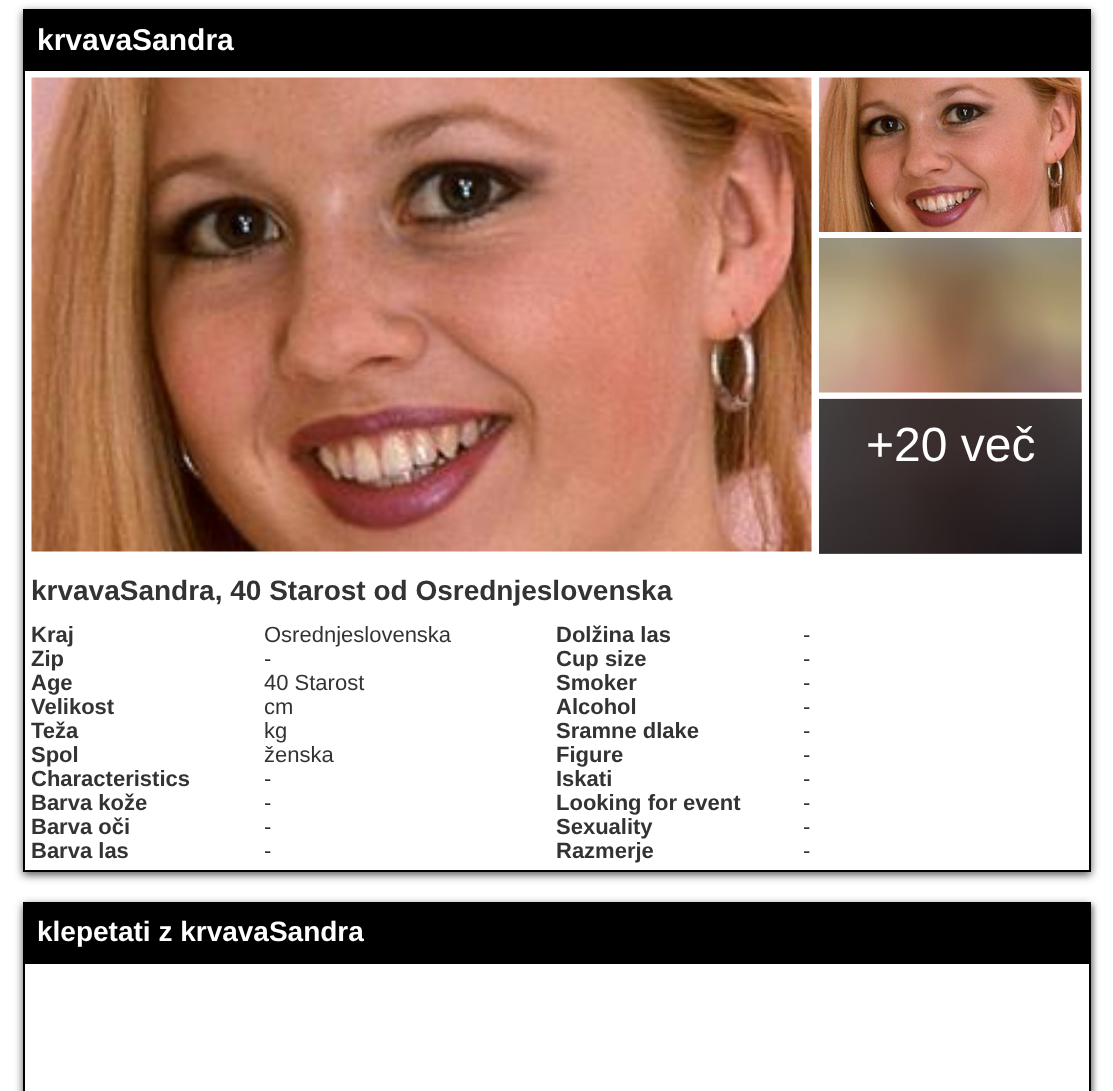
<?xml version="1.0" encoding="UTF-8"?>
<svg xmlns="http://www.w3.org/2000/svg" width="1113" height="1091">
    <defs>
        <clipPath id="clip1"><path d="M 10 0 H 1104 V 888 H 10 Z M 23 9 H 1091 V 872 H 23 Z" clip-rule="evenodd"/></clipPath>
        <filter id="blur1" x="-50%" y="-200%" width="200%" height="500%"><feGaussianBlur stdDeviation="4"/></filter>
        <clipPath id="clip2"><rect x="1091" y="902" width="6" height="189"/></clipPath>
        <filter id="blur2" x="-50%" y="-200%" width="200%" height="500%"><feGaussianBlur stdDeviation="2"/></filter>
        <clipPath id="clip3"><path d="M 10 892 H 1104 V 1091 H 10 Z M 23 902 H 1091 V 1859 H 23 Z" clip-rule="evenodd"/></clipPath>
    </defs>
    <rect width="100%" height="100%" fill="#FFFFFF"/>
    <rect x="819" y="399" width="263" height="155" fill="#4D4D4D"/>
    <g clip-path="url(#clip1)">
        <rect x="23" y="12" width="1068" height="863" fill="#595959" filter="url(#blur1)"/>
    </g>
    <rect x="23" y="9" width="1068" height="60" fill="#000000"/>
    <text x="37" y="50" font-family="Liberation Sans" font-size="30" font-weight="700" fill="#FFFFFF">krvavaSandra</text>
    <rect x="24" y="70" width="1066" height="801" fill="none" stroke="#000000" stroke-width="2"/>
    <image x="31" y="77" width="781" height="475" href="img_01.png"/>
    <image x="819" y="77" width="263" height="155" href="img_02.png"/>
    <image x="819" y="238" width="263" height="155" href="img_03.png"/>
    <image x="819" y="398" width="263" height="155" href="img_04.png"/>
    <text x="866" y="461" font-family="Liberation Sans" font-size="48" fill="#FFFFFF">+20 več</text>
    <text x="31" y="600" font-family="Liberation Sans" font-size="28" font-weight="700" fill="#333333">krvavaSandra, 40 Starost od Osrednjeslovenska</text>
    <text x="31" y="642" font-family="Liberation Sans" font-size="22" font-weight="700" fill="#333333">Kraj</text>
    <text x="264" y="642" font-family="Liberation Sans" font-size="22" fill="#333333">Osrednjeslovenska</text>
    <text x="31" y="666" font-family="Liberation Sans" font-size="22" font-weight="700" fill="#333333">Zip</text>
    <text x="264" y="666" font-family="Liberation Sans" font-size="22" fill="#333333">-</text>
    <text x="31" y="690" font-family="Liberation Sans" font-size="22" font-weight="700" fill="#333333">Age</text>
    <text x="264" y="690" font-family="Liberation Sans" font-size="22" fill="#333333">40 Starost</text>
    <text x="31" y="714" font-family="Liberation Sans" font-size="22" font-weight="700" fill="#333333">Velikost</text>
    <text x="264" y="714" font-family="Liberation Sans" font-size="22" fill="#333333">cm</text>
    <text x="31" y="738" font-family="Liberation Sans" font-size="22" font-weight="700" fill="#333333">Teža</text>
    <text x="264" y="738" font-family="Liberation Sans" font-size="22" fill="#333333">kg</text>
    <text x="31" y="762" font-family="Liberation Sans" font-size="22" font-weight="700" fill="#333333">Spol</text>
    <text x="264" y="762" font-family="Liberation Sans" font-size="22" fill="#333333">ženska</text>
    <text x="31" y="786" font-family="Liberation Sans" font-size="22" font-weight="700" fill="#333333">Characteristics</text>
    <text x="264" y="786" font-family="Liberation Sans" font-size="22" fill="#333333">-</text>
    <text x="31" y="810" font-family="Liberation Sans" font-size="22" font-weight="700" fill="#333333">Barva kože</text>
    <text x="264" y="810" font-family="Liberation Sans" font-size="22" fill="#333333">-</text>
    <text x="31" y="834" font-family="Liberation Sans" font-size="22" font-weight="700" fill="#333333">Barva oči</text>
    <text x="264" y="834" font-family="Liberation Sans" font-size="22" fill="#333333">-</text>
    <text x="31" y="858" font-family="Liberation Sans" font-size="22" font-weight="700" fill="#333333">Barva las</text>
    <text x="264" y="858" font-family="Liberation Sans" font-size="22" fill="#333333">-</text>
    <text x="556" y="642" font-family="Liberation Sans" font-size="22" font-weight="700" fill="#333333">Dolžina las</text>
    <text x="803" y="642" font-family="Liberation Sans" font-size="22" fill="#333333">-</text>
    <text x="556" y="666" font-family="Liberation Sans" font-size="22" font-weight="700" fill="#333333">Cup size</text>
    <text x="803" y="666" font-family="Liberation Sans" font-size="22" fill="#333333">-</text>
    <text x="556" y="690" font-family="Liberation Sans" font-size="22" font-weight="700" fill="#333333">Smoker</text>
    <text x="803" y="690" font-family="Liberation Sans" font-size="22" fill="#333333">-</text>
    <text x="556" y="714" font-family="Liberation Sans" font-size="22" font-weight="700" fill="#333333">Alcohol</text>
    <text x="803" y="714" font-family="Liberation Sans" font-size="22" fill="#333333">-</text>
    <text x="556" y="738" font-family="Liberation Sans" font-size="22" font-weight="700" fill="#333333">Sramne dlake</text>
    <text x="803" y="738" font-family="Liberation Sans" font-size="22" fill="#333333">-</text>
    <text x="556" y="762" font-family="Liberation Sans" font-size="22" font-weight="700" fill="#333333">Figure</text>
    <text x="803" y="762" font-family="Liberation Sans" font-size="22" fill="#333333">-</text>
    <text x="556" y="786" font-family="Liberation Sans" font-size="22" font-weight="700" fill="#333333">Iskati</text>
    <text x="803" y="786" font-family="Liberation Sans" font-size="22" fill="#333333">-</text>
    <text x="556" y="810" font-family="Liberation Sans" font-size="22" font-weight="700" fill="#333333">Looking for event</text>
    <text x="803" y="810" font-family="Liberation Sans" font-size="22" fill="#333333">-</text>
    <text x="556" y="834" font-family="Liberation Sans" font-size="22" font-weight="700" fill="#333333">Sexuality</text>
    <text x="803" y="834" font-family="Liberation Sans" font-size="22" fill="#333333">-</text>
    <text x="556" y="858" font-family="Liberation Sans" font-size="22" font-weight="700" fill="#333333">Razmerje</text>
    <text x="803" y="858" font-family="Liberation Sans" font-size="22" fill="#333333">-</text>
    <g clip-path="url(#clip2)">
        <rect x="26" y="905" width="1068" height="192" fill="#949494" fill-opacity="0.4" filter="url(#blur2)"/>
    </g>
    <g clip-path="url(#clip3)">
        <rect x="23" y="905" width="1068" height="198" fill="#595959" filter="url(#blur1)"/>
    </g>
    <rect x="23" y="902" width="1068" height="60" fill="#000000"/>
    <text x="37" y="941" font-family="Liberation Sans" font-size="28" font-weight="700" fill="#FFFFFF">klepetati z krvavaSandra</text>
    <rect x="24" y="963" width="1066" height="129" fill="none" stroke="#000000" stroke-width="2"/>
</svg>
